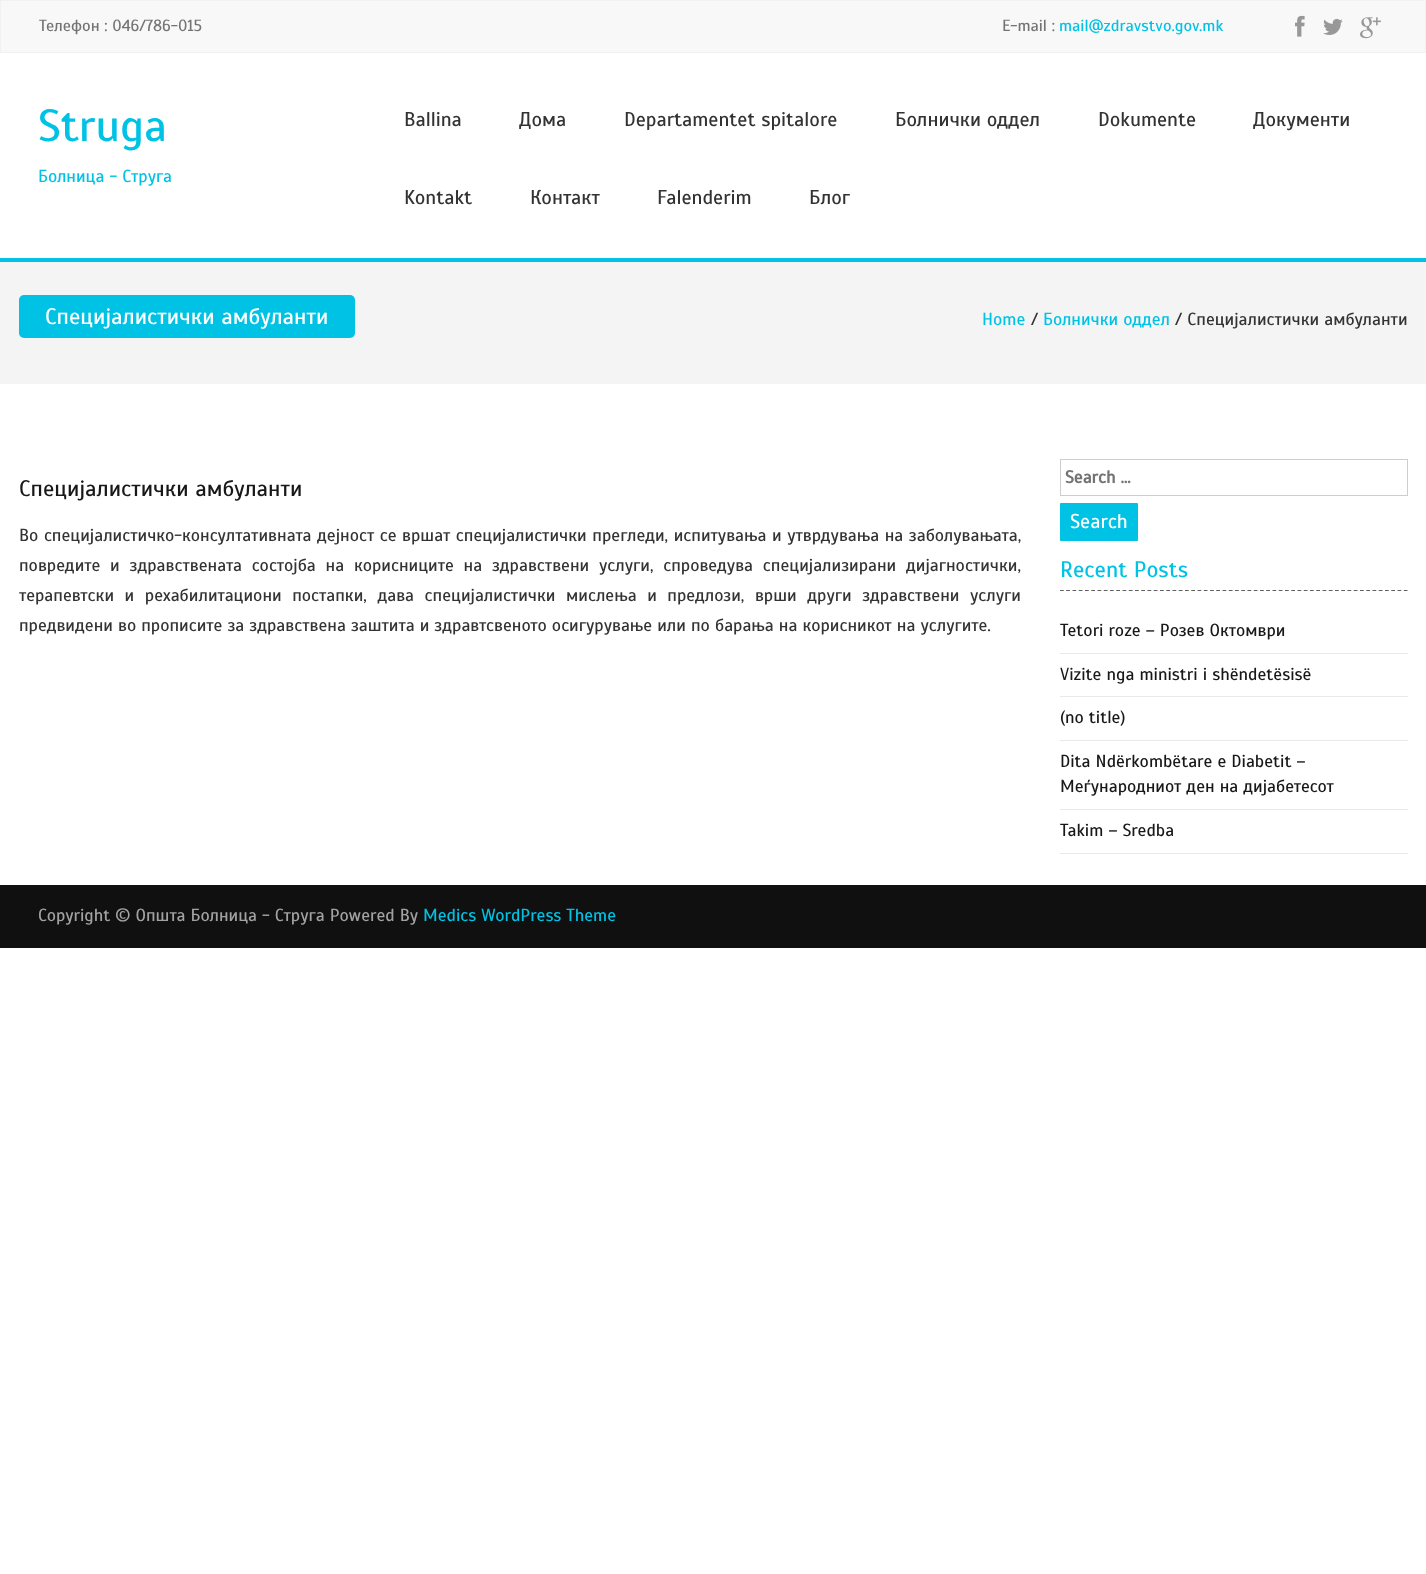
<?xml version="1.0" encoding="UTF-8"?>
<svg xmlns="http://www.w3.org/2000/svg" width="1426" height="1574">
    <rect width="100%" height="100%" fill="#FFFFFF"/>
    <rect x="0.5" y="0.5" width="1425" height="52" fill="#F8F8F8" stroke="#F1F1F1"/>
    <text x="39" y="31" font-family="Scada" font-size="16.25" fill="#747474">Телефон : 046/786-015</text>
    <text x="1002" y="31" font-family="Scada" font-size="16.25" fill="#747474">E-mail :</text>
    <text x="1059" y="31" font-family="Scada" font-size="16.25" fill="#00C2E5">mail@zdravstvo.gov.mk</text>
    <image x="1295" y="15" width="10" height="22" href="img_01.png"/>
    <image x="1323" y="18" width="20" height="17" href="img_02.png"/>
    <image x="1360" y="17" width="21" height="22" href="img_03.png"/>
    <text x="38" y="141" font-family="Scada" font-size="45" fill="#00C2E5">Struga</text>
    <text x="38" y="182" font-family="Scada" font-size="17.5" fill="#00C2E5">Болница - Струга</text>
    <text x="404" y="126" font-family="Scada" font-size="20" fill="#333333">Ballina</text>
    <text x="519" y="126" font-family="Scada" font-size="20" fill="#333333">Дома</text>
    <text x="624" y="126" font-family="Scada" font-size="20" fill="#333333">Departamentet spitalore</text>
    <text x="895" y="126" font-family="Scada" font-size="20" fill="#333333">Болнички оддел</text>
    <text x="1098" y="126" font-family="Scada" font-size="20" fill="#333333">Dokumente</text>
    <text x="1253" y="126" font-family="Scada" font-size="20" fill="#333333">Документи</text>
    <text x="404" y="204" font-family="Scada" font-size="20" fill="#333333">Kontakt</text>
    <text x="530" y="204" font-family="Scada" font-size="20" fill="#333333">Контакт</text>
    <text x="657" y="204" font-family="Scada" font-size="20" fill="#333333">Falenderim</text>
    <text x="809" y="204" font-family="Scada" font-size="20" fill="#333333">Блог</text>
    <rect x="0" y="262" width="1426" height="122" fill="#F4F4F4"/>
    <rect x="0" y="258" width="1426" height="4" fill="#00C2E5"/>
    <rect x="19" y="295" width="336" height="43" rx="5" fill="#00C2E5"/>
    <text x="45" y="324" font-family="Scada" font-size="22.5" fill="#FEFFFF">Специјалистички амбуланти</text>
    <text x="982" y="325" font-family="Scada" font-size="17.5" fill="#00C2E5">Home</text>
    <text x="1031" y="325" font-family="Scada" font-size="17.5" fill="#333333">/</text>
    <text x="1043" y="325" font-family="Scada" font-size="17.5" fill="#00C2E5">Болнички оддел</text>
    <text x="1175" y="325" font-family="Scada" font-size="17.5" fill="#333333">/ Специјалистички амбуланти</text>
    <text x="19" y="496" font-family="Scada" font-size="22.5" fill="#181818">Специјалистички амбуланти</text>
    <text font-family="Scada" font-size="17.5" fill="#333333">
        <tspan x="19" y="541" word-spacing="0.5">Во специјалистичко-консултативната дејност се вршат специјалистички прегледи, испитувања и утврдувања на заболувањата,</tspan>
        <tspan x="19" y="571" word-spacing="4.75">повредите и здравствената состојба на корисниците на здравствени услуги, спроведува специјализирани дијагностички,</tspan>
        <tspan x="19" y="601" word-spacing="5.5">терапевтски и рехабилитациони постапки, дава специјалистички мислења и предлози, врши други здравствени услуги</tspan>
        <tspan x="19" y="631">предвидени во прописите за здравствена заштита и здравтсвеното осигурување или по барања на корисникот на услугите.</tspan>
    </text>
    <rect x="1060.5" y="459.5" width="347" height="36" fill="none" stroke="#CDCDCD"/>
    <text x="1065" y="483" font-family="Scada" font-size="17.5" font-weight="700" fill="#747474">Search …</text>
    <rect x="1060" y="503" width="78" height="38" rx="1" fill="#00C2E5"/>
    <text x="1070" y="528" font-family="Scada" font-size="20" fill="#FEFFFF">Search</text>
    <path d="M 1060 590.5 H 1407.5" fill="none" stroke="#606060" stroke-width="1.2" stroke-dasharray="3.75 2.5"/>
    <text x="1060" y="577" font-family="Scada" font-size="22.5" fill="#00C2E5">Recent Posts</text>
    <rect x="1060" y="653" width="348" height="1" fill="#E9E9E9"/>
    <text x="1060" y="636" font-family="Scada" font-size="17.5" fill="#181818">Tetori roze – Розев Октомври</text>
    <rect x="1060" y="696" width="348" height="1" fill="#E9E9E9"/>
    <text x="1060" y="680" font-family="Scada" font-size="17.5" fill="#181818">Vizite nga ministri i shëndetësisë</text>
    <rect x="1060" y="740" width="348" height="1" fill="#E9E9E9"/>
    <text x="1060" y="723" font-family="Scada" font-size="17.5" fill="#181818">(no title)</text>
    <rect x="1060" y="809" width="348" height="1" fill="#E9E9E9"/>
    <text font-family="Scada" font-size="17.5" fill="#181818">
        <tspan x="1060" y="767">Dita Ndërkombëtare e Diabetit –</tspan>
        <tspan x="1060" y="792">Меѓународниот ден на дијабетесот</tspan>
    </text>
    <rect x="1060" y="853" width="348" height="1" fill="#E9E9E9"/>
    <text x="1060" y="836" font-family="Scada" font-size="17.5" fill="#181818">Takim – Sredba</text>
    <rect x="0" y="885" width="1426" height="63" fill="#101010"/>
    <text x="38" y="921" font-family="Scada" font-size="17.5" fill="#A2A2A2">Copyright © Општа Болница - Струга Powered By</text>
    <text x="423" y="921" font-family="Scada" font-size="17.5" fill="#00C2E5">Medics WordPress Theme</text>
</svg>
